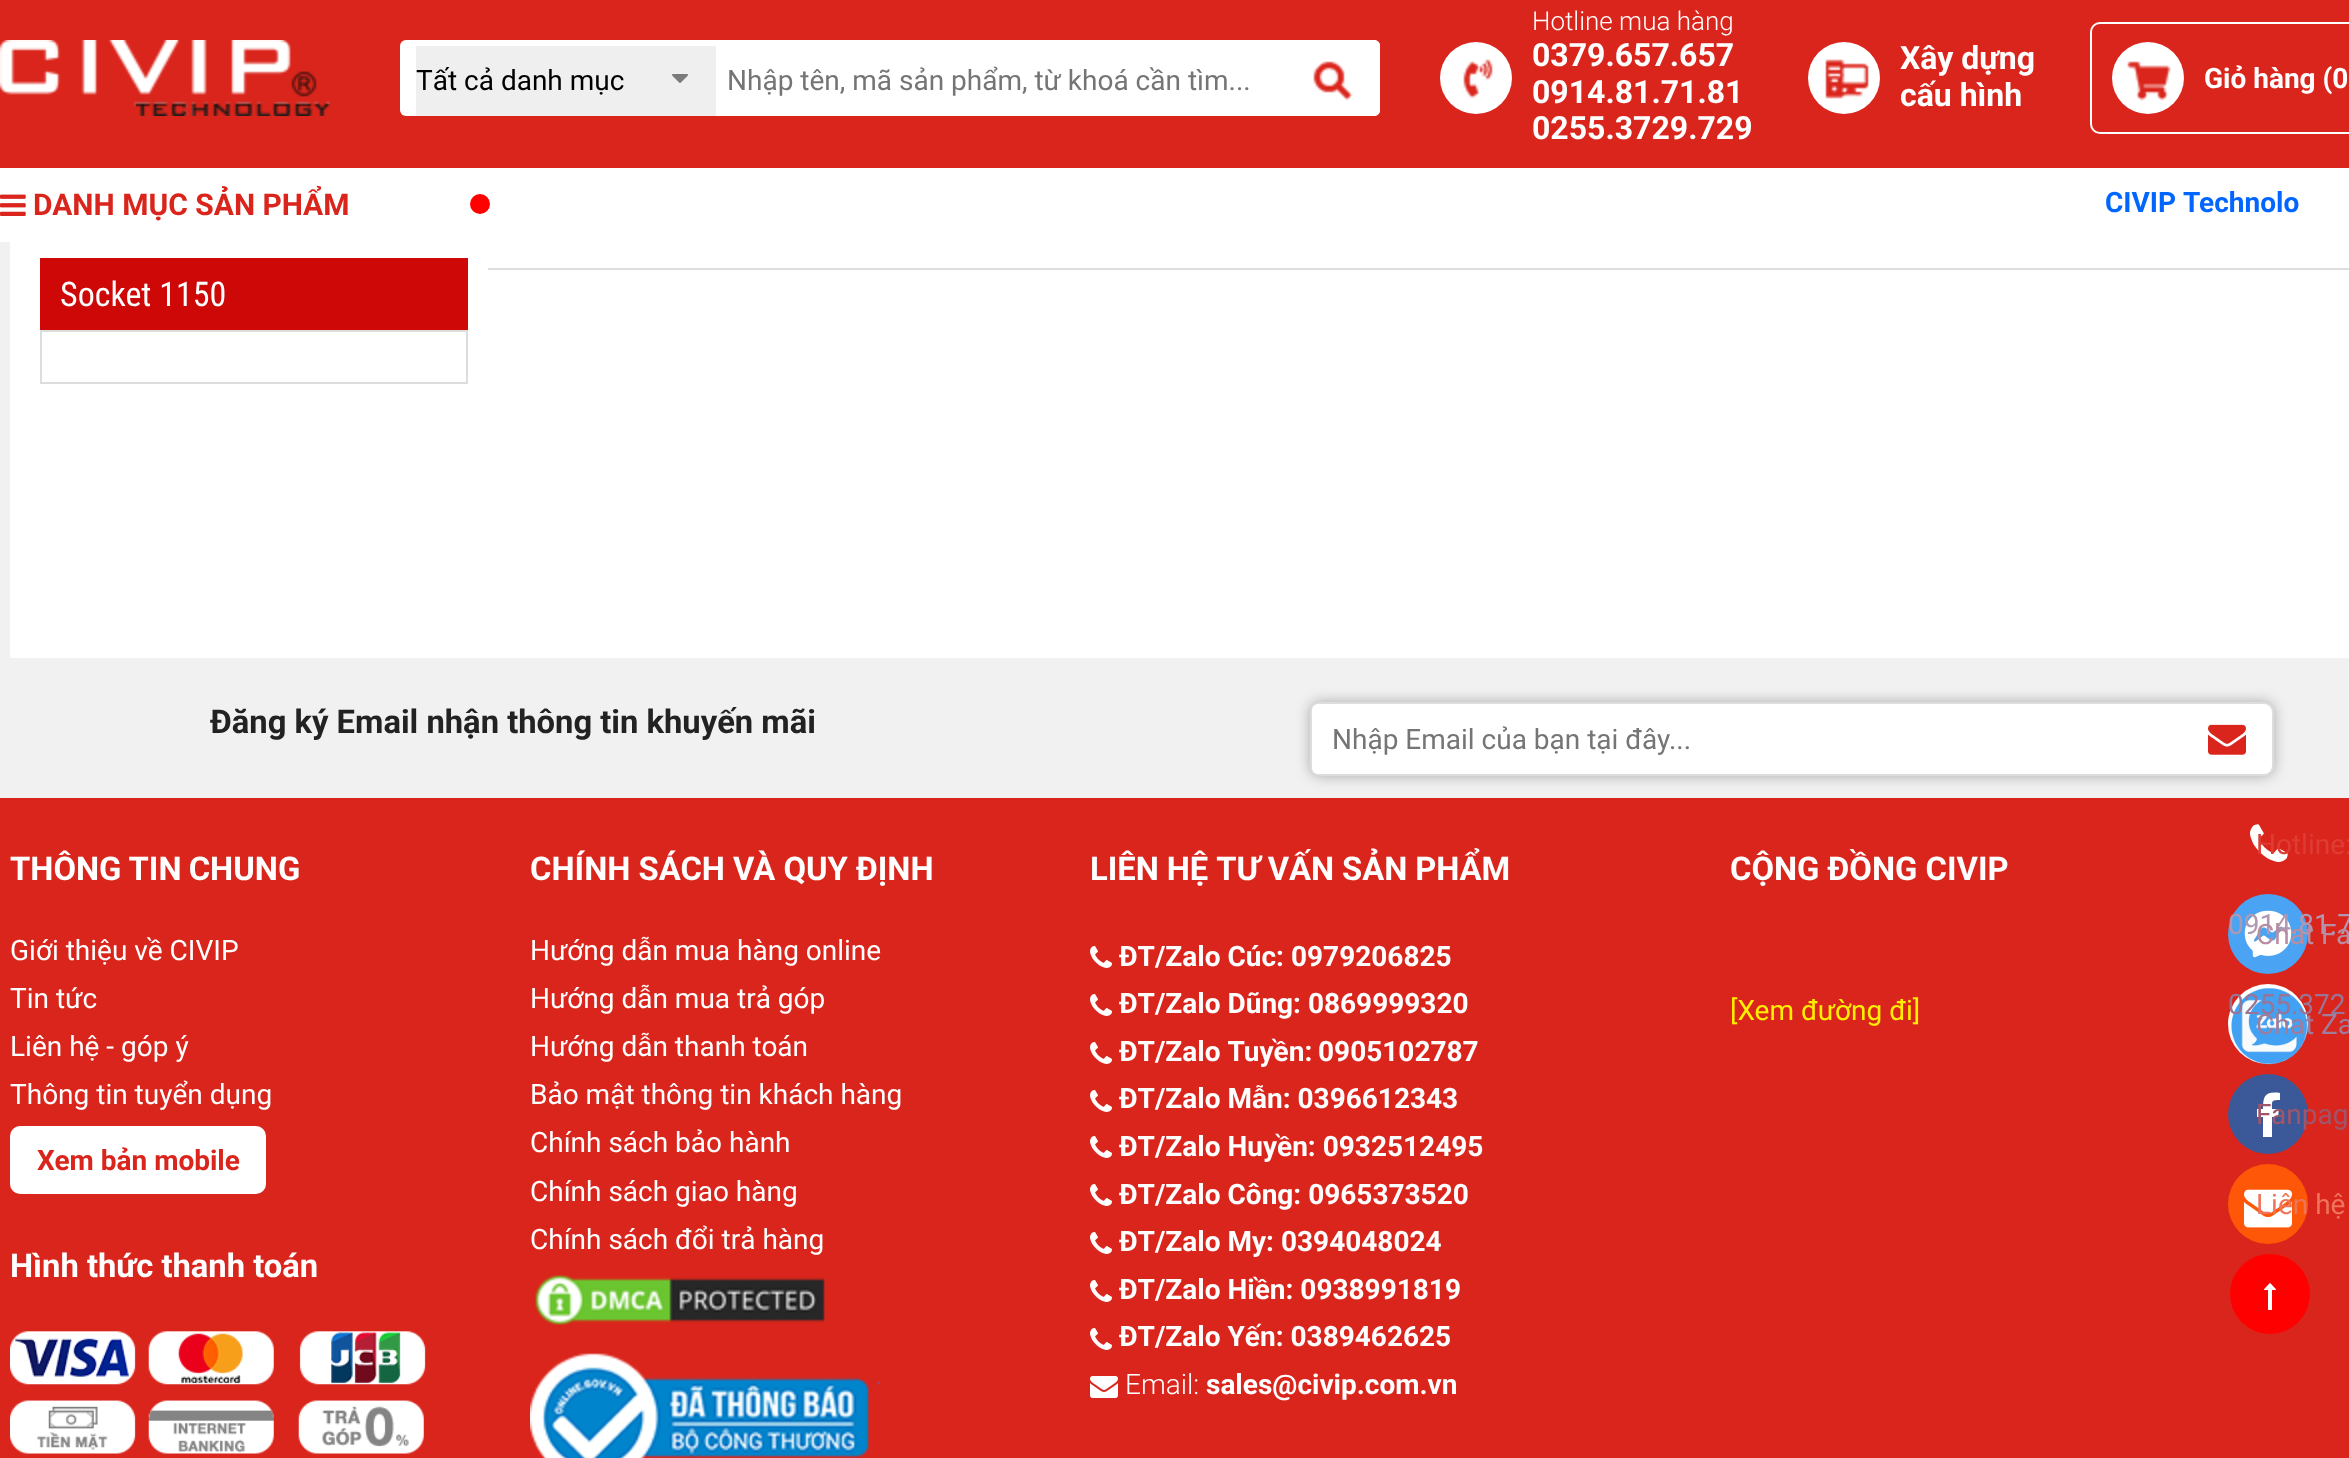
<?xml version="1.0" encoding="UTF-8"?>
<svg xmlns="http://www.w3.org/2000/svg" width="2349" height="1458">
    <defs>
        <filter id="blur1" x="-50%" y="-200%" width="200%" height="500%"><feGaussianBlur stdDeviation="7"/></filter>
    </defs>
    <rect width="100%" height="100%" fill="#F1F1F1"/>
    <rect x="0" y="0" width="2349" height="168" fill="#DA251C"/>
    <image x="0" y="40" width="330" height="76" href="img_01.png"/>
    <rect x="400" y="40" width="980" height="76" rx="6" fill="#FFFFFF"/>
    <rect x="416" y="46" width="300" height="70" fill="#EFEFEF"/>
    <text x="416" y="90" font-family="Roboto" font-size="28" fill="#000000">Tất cả danh mục</text>
    <image x="672" y="74" width="16" height="9" href="img_02.png"/>
    <text x="727" y="90" font-family="Roboto" font-size="28" fill="#757575">Nhập tên, mã sản phẩm, từ khoá cần tìm...</text>
    <path d="M 1290 40 H 1374 C 1377.5 40 1380 42.5 1380 46 V 110 C 1380 113.5 1377.5 116 1374 116 H 1290 Z" fill="#FFFFFF"/>
    <image x="1313" y="61" width="40" height="40" href="img_03.png"/>
    <circle cx="1476" cy="78" r="36" fill="#FFFFFF"/>
    <image x="1463" y="59" width="30" height="40" href="img_04.png"/>
    <text x="1532" y="30" font-family="Roboto" font-size="26" font-weight="300" fill="#FFFFFF">Hotline mua hàng</text>
    <text font-family="Roboto" font-size="32" font-weight="700" fill="#FFFFFF">
        <tspan x="1532" y="66">0379.657.657</tspan>
        <tspan x="1532" y="103">0914.81.71.81</tspan>
        <tspan x="1532" y="139">0255.3729.729</tspan>
    </text>
    <circle cx="1844" cy="78" r="36" fill="#FFFFFF"/>
    <image x="1825" y="59" width="44" height="40" href="img_05.png"/>
    <text font-family="Roboto" font-size="32" font-weight="700" fill="#FFFFFF">
        <tspan x="1900" y="69">Xây dựng</tspan>
        <tspan x="1900" y="106">cấu hình</tspan>
    </text>
    <rect x="2091" y="23" width="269" height="110" rx="9" fill="none" stroke="#FFFFFF" stroke-width="2"/>
    <circle cx="2148" cy="78" r="36" fill="#FFFFFF"/>
    <image x="2127" y="61" width="44" height="40" href="img_06.png"/>
    <text x="2204" y="88" font-family="Roboto" font-size="28" font-weight="700" fill="#FFFFFF">Giỏ hàng (0</text>
    <rect x="0" y="168" width="2349" height="74" fill="#FFFFFF"/>
    <image x="0" y="194" width="26" height="22" href="img_07.png"/>
    <text x="33" y="215" font-family="Roboto" font-size="30" font-weight="700" fill="#DA251C">DANH MỤC SẢN PHẨM</text>
    <circle cx="480" cy="204" r="10" fill="#FF0000"/>
    <text x="2105" y="212" font-family="Roboto" font-size="28" font-weight="700" fill="#0066FF">CIVIP Technolo</text>
    <rect x="10" y="242" width="2339" height="416" fill="#FFFFFF"/>
    <rect x="488" y="268" width="1861" height="2" fill="#DDDDDD"/>
    <rect x="40" y="258" width="428" height="72" fill="#CE0707"/>
    <text x="60" y="306" font-family="Roboto Condensed" font-size="34" fill="#FFFFFF">Socket 1150</text>
    <rect x="41" y="331" width="426" height="52" fill="none" stroke="#DDDDDD" stroke-width="2"/>
    <text x="210" y="733" font-family="Roboto" font-size="32.75" font-weight="700" fill="#222222">Đăng ký Email nhận thông tin khuyến mãi</text>
    <rect x="1310" y="702" width="964" height="74" rx="10" fill="#000000" fill-opacity="0.3" filter="url(#blur1)"/>
    <rect x="1311" y="703" width="962" height="72" rx="9" fill="#FFFFFF" stroke="#DDDDDD" stroke-width="2"/>
    <rect x="1312" y="704" width="640" height="70" rx="6" fill="#FFFFFF"/>
    <text x="1332" y="749" font-family="Roboto" font-size="28" fill="#757575">Nhập Email của bạn tại đây...</text>
    <image x="2208" y="724" width="38" height="31" href="img_08.png"/>
    <rect x="0" y="798" width="2349" height="660" fill="#DA251C"/>
    <text x="10" y="880" word-spacing="-1" font-family="Roboto" font-size="32.75" font-weight="700" fill="#FFFFFF">THÔNG TIN CHUNG</text>
    <text font-family="Roboto" font-size="28" fill="#FFFFFF">
        <tspan x="10" y="960">Giới thiệu về CIVIP</tspan>
        <tspan x="10" y="1008">Tin tức</tspan>
        <tspan x="10" y="1056">Liên hệ - góp ý</tspan>
        <tspan x="10" y="1104">Thông tin tuyển dụng</tspan>
    </text>
    <rect x="10" y="1126" width="256" height="68" rx="10" fill="#FFFFFF"/>
    <text x="37" y="1170" font-family="Roboto" font-size="28" font-weight="700" fill="#DA251C">Xem bản mobile</text>
    <text x="10" y="1277" font-family="Roboto" font-size="32.75" font-weight="700" fill="#FFFFFF">Hình thức thanh toán</text>
    <image x="10" y="1331" width="416" height="123" href="img_09.png"/>
    <text x="530" y="880" font-family="Roboto" font-size="32.75" font-weight="700" fill="#FFFFFF">CHÍNH SÁCH VÀ QUY ĐỊNH</text>
    <text font-family="Roboto" font-size="28" fill="#FFFFFF">
        <tspan x="530" y="960">Hướng dẫn mua hàng online</tspan>
        <tspan x="530" y="1008">Hướng dẫn mua trả góp</tspan>
        <tspan x="530" y="1056">Hướng dẫn thanh toán</tspan>
        <tspan x="530" y="1104">Bảo mật thông tin khách hàng</tspan>
        <tspan x="530" y="1152">Chính sách bảo hành</tspan>
        <tspan x="530" y="1201">Chính sách giao hàng</tspan>
        <tspan x="530" y="1249">Chính sách đổi trả hàng</tspan>
    </text>
    <image x="535" y="1275" width="290" height="50" href="img_10.png"/>
    <image x="530" y="1353" width="350" height="105" href="img_11.png"/>
    <text x="1090" y="880" word-spacing="-0.25" font-family="Roboto" font-size="32.75" font-weight="700" fill="#FFFFFF">LIÊN HỆ TƯ VẤN SẢN PHẨM</text>
    <image x="1090" y="946" width="22" height="22" href="img_12.png"/>
    <text x="1119" y="966" font-family="Roboto" font-size="28" font-weight="700" fill="#FFFFFF">ĐT/Zalo Cúc: 0979206825</text>
    <image x="1090" y="994" width="22" height="22" href="img_12.png"/>
    <text x="1119" y="1013" font-family="Roboto" font-size="28" font-weight="700" fill="#FFFFFF">ĐT/Zalo Dũng: 0869999320</text>
    <image x="1090" y="1042" width="22" height="22" href="img_12.png"/>
    <text x="1119" y="1061" font-family="Roboto" font-size="28" font-weight="700" fill="#FFFFFF">ĐT/Zalo Tuyền:</text>
    <text x="1318" y="1061" font-family="Roboto" font-size="28" font-weight="700" fill="#FFFFFF">0905102787</text>
    <image x="1090" y="1090" width="22" height="22" href="img_12.png"/>
    <text x="1119" y="1108" font-family="Roboto" font-size="28" font-weight="700" fill="#FFFFFF">ĐT/Zalo Mẫn: 0396612343</text>
    <image x="1090" y="1136" width="22" height="22" href="img_12.png"/>
    <text x="1119" y="1156" font-family="Roboto" font-size="28" font-weight="700" fill="#FFFFFF">ĐT/Zalo Huyền: 0932512495</text>
    <image x="1090" y="1184" width="22" height="22" href="img_12.png"/>
    <text x="1119" y="1204" font-family="Roboto" font-size="28" font-weight="700" fill="#FFFFFF">ĐT/Zalo Công: 0965373520</text>
    <image x="1090" y="1232" width="22" height="22" href="img_12.png"/>
    <text x="1119" y="1251" font-family="Roboto" font-size="28" font-weight="700" fill="#FFFFFF">ĐT/Zalo My: 0394048024</text>
    <image x="1090" y="1280" width="22" height="22" href="img_12.png"/>
    <text x="1119" y="1299" font-family="Roboto" font-size="28" font-weight="700" fill="#FFFFFF">ĐT/Zalo Hiền: 0938991819</text>
    <image x="1090" y="1328" width="22" height="22" href="img_12.png"/>
    <text x="1119" y="1346" font-family="Roboto" font-size="28" font-weight="700" fill="#FFFFFF">ĐT/Zalo Yến: 0389462625</text>
    <image x="1090" y="1376" width="28" height="22" href="img_13.png"/>
    <text x="1125" y="1394" font-family="Roboto" font-size="28" font-weight="300" fill="#FFFFFF">Email:</text>
    <text x="1206" y="1394" font-family="Roboto" font-size="28" font-weight="700" fill="#FFFFFF">sales@civip.com.vn</text>
    <text x="1730" y="880" font-family="Roboto" font-size="32.75" font-weight="700" fill="#FFFFFF">CỘNG ĐỒNG CIVIP</text>
    <text x="1730" y="1020" font-family="Roboto" font-size="28" fill="#FFF000">[Xem đường đi]</text>
    <image x="2250" y="824" width="38" height="38" href="img_14.png"/>
    <text x="2256" y="854" font-family="Roboto" font-size="28" fill="#DE3C34">Hotline:</text>
    <circle cx="2268" cy="934" r="40" fill="#4AA4F3"/>
    <image x="2244" y="910" width="48" height="48" href="img_15.png"/>
    <text x="2228" y="934" font-family="Roboto" font-size="28" fill="#B098B2">0914.81.7</text>
    <circle cx="2268" cy="1024" r="40" fill="#FFFFFF"/>
    <image x="2231" y="987" width="77" height="78" href="img_16.png"/>
    <text x="2228" y="1014" font-family="Roboto" font-size="28" fill="#997495">0255.372</text>
    <text x="2256" y="944" font-family="Roboto" font-size="28" fill="#B88CA1">Chat Fa</text>
    <text x="2256" y="1034" font-family="Roboto" font-size="28" fill="#9E7C9C">Chat Za</text>
    <circle cx="2268" cy="1114" r="40" fill="#3B5998"/>
    <path d="M 2280 1093 V 1100 C 2271 1100 2272 1101 2272 1109 H 2279 L 2278 1117 H 2272 V 1137 H 2263 V 1117 H 2257 V 1109 H 2263 C 2263 1096 2265 1091 2280 1093 Z" fill="#FFFFFF"/>
    <text x="2256" y="1124" font-family="Roboto" font-size="28" fill="#9F556A">Fanpag</text>
    <circle cx="2268" cy="1204" r="40" fill="#FD5707"/>
    <image x="2244" y="1189" width="48" height="39" href="img_17.png"/>
    <text x="2256" y="1214" font-family="Roboto" font-size="28" fill="#EE745C">Liên hệ</text>
    <circle cx="2270" cy="1294" r="40" fill="#FF0000"/>
    <image x="2264" y="1283" width="12" height="27" href="img_18.png"/>
</svg>
